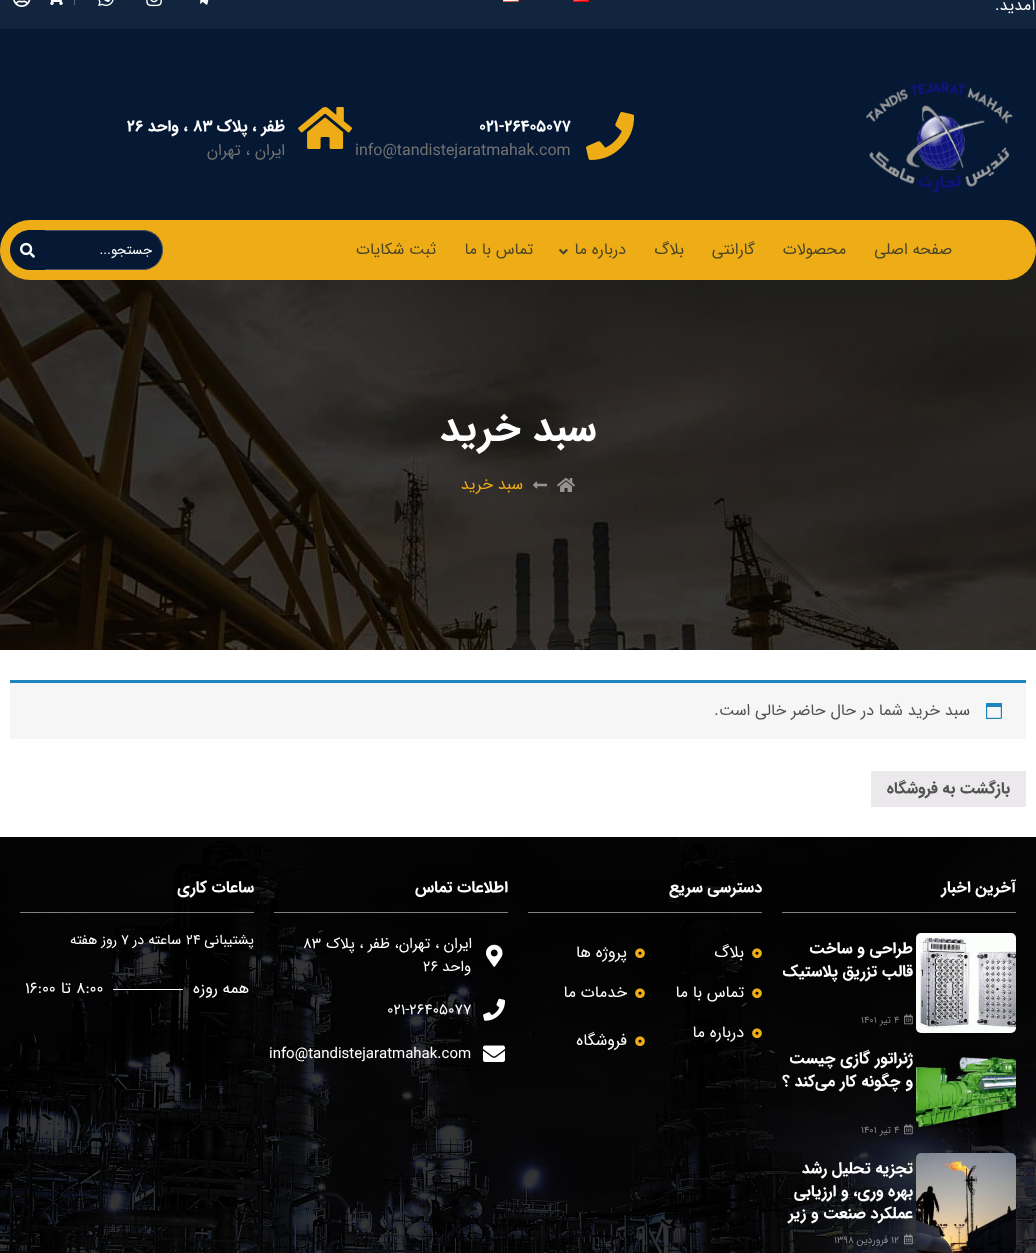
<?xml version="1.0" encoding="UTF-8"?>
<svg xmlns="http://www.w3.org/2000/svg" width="1036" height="1253">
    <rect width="100%" height="100%" fill="#FFFFFF"/>
    <rect x="0" y="0" width="1036" height="29" fill="#12253E"/>
    <text x="1036" y="10" font-family="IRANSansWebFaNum" font-size="16" direction="rtl" fill="#FFFFFF">آمدید.</text>
    <image x="573" y="0" width="16" height="2" href="img_01.png"/>
    <image x="503" y="0" width="16" height="2" href="img_02.png"/>
    <image x="200" y="0" width="9" height="5" href="img_03.png"/>
    <image x="146" y="0" width="16" height="7" href="img_04.png"/>
    <image x="98" y="0" width="16" height="7" href="img_05.png"/>
    <rect x="74" y="0" width="1" height="5" fill="#596678"/>
    <image x="50" y="0" width="13" height="5" href="img_06.png"/>
    <image x="13" y="0" width="18" height="7" href="img_07.png"/>
    <rect x="0" y="29" width="1036" height="221" fill="#051934"/>
    <image x="866" y="81" width="147" height="112" href="img_08.png"/>
    <image x="586" y="112" width="48" height="48" href="img_09.png"/>
    <text x="479" y="131" font-family="IRANSansWebFaNum" font-size="16" font-weight="700" fill="#FFFFFF">021-26405077</text>
    <text x="355" y="155" font-family="IRANSansWebFaNum" font-size="16" fill="#747171">info@tandistejaratmahak.com</text>
    <image x="298" y="107" width="55" height="42" href="img_10.png"/>
    <text x="285" y="131" font-family="IRANSansWebFaNum" font-size="16" font-weight="700" direction="rtl" fill="#FFFFFF">ظفر ، پلاک</text>
    <text x="193" y="131" font-family="IRANSansWebFaNum" font-size="16" font-weight="700" fill="#FFFFFF">83</text>
    <text x="188" y="131" font-family="IRANSansWebFaNum" font-size="16" font-weight="700" direction="rtl" fill="#FFFFFF">، واحد</text>
    <text x="127" y="131" font-family="IRANSansWebFaNum" font-size="16" font-weight="700" fill="#FFFFFF">26</text>
    <text x="285" y="155" font-family="IRANSansWebFaNum" font-size="16" direction="rtl" fill="#747171">ایران ، تهران</text>
    <image x="0" y="250" width="1036" height="400" href="img_13.png"/>
    <rect x="0" y="220" width="1036" height="60" rx="30" fill="#EEAD16"/>
    <text x="952" y="254" font-family="IRANSansWebFaNum" font-size="16" direction="rtl" fill="#494525">صفحه اصلی</text>
    <text x="846" y="254" font-family="IRANSansWebFaNum" font-size="16" direction="rtl" fill="#494525">محصولات</text>
    <text x="755" y="254" font-family="IRANSansWebFaNum" font-size="16" direction="rtl" fill="#494525">گارانتی</text>
    <text x="684" y="254" font-family="IRANSansWebFaNum" font-size="16" direction="rtl" fill="#494525">بلاگ</text>
    <text x="626" y="254" font-family="IRANSansWebFaNum" font-size="16" direction="rtl" fill="#494525">درباره ما</text>
    <image x="559" y="249" width="9" height="6" href="img_11.png"/>
    <text x="533" y="254" font-family="IRANSansWebFaNum" font-size="16" direction="rtl" fill="#494525">تماس با ما</text>
    <text x="436" y="254" font-family="IRANSansWebFaNum" font-size="16" direction="rtl" fill="#494525">ثبت شکایات</text>
    <path d="M 43 230 H 143 C 154 230 163 239 163 250 C 163 261 154 270 143 270 H 43 Z" fill="#051934"/>
    <path d="M 43.5 230.5 H 143 C 154 230.5 162.5 239 162.5 250 C 162.5 261 154 269.5 143 269.5 H 43.5 Z" fill="none" stroke="#A7A7A7" stroke-opacity="0.4"/>
    <text x="152" y="254" font-family="IRANSansWebFaNum" font-size="13.5" direction="rtl" fill="#FFFFFF">جستجو...</text>
    <path d="M 30 230 H 45 V 270 H 30 C 19 270 10 261 10 250 C 10 239 19 230 30 230 Z" fill="#051934"/>
    <image x="20" y="242" width="15" height="16" href="img_12.png"/>
    <text x="596" y="440" font-family="IRANSansWebFaNum" font-size="40" font-weight="700" direction="rtl" fill="#FFFFFF">سبد خرید</text>
    <image x="557" y="478" width="18" height="14" href="img_14.png"/>
    <image x="533" y="481" width="14" height="8" href="img_15.png"/>
    <text x="523" y="489" font-family="IRANSansWebFaNum" font-size="16" direction="rtl" fill="#EEAD16">سبد خرید</text>
    <rect x="10" y="683" width="1016" height="56" fill="#F7F6F7"/>
    <rect x="10" y="680" width="1016" height="3" fill="#1E85BE"/>
    <image x="986" y="703" width="16" height="16" href="img_16.png"/>
    <text x="970" y="715" font-family="IRANSansWebFaNum" font-size="16" direction="rtl" fill="#515151">سبد خرید شما در حال حاضر خالی است.</text>
    <rect x="871" y="771" width="155" height="36" fill="#EBE9EB"/>
    <text x="1010" y="793" font-family="IRANSansWebFaNum" font-size="16" font-weight="700" direction="rtl" fill="#515151">بازگشت به فروشگاه</text>
    <image x="0" y="837" width="1036" height="416" href="img_17.png"/>
    <text x="1016" y="892" font-family="IRANSansWebFaNum" font-size="16" font-weight="700" direction="rtl" fill="#FFFFFF">آخرین اخبار</text>
    <rect x="782" y="912" width="234" height="1" fill="#FFFFFF" fill-opacity="0.5"/>
    <image x="916" y="933" width="100" height="100" href="img_18.png"/>
    <text font-family="IRANSansWebFaNum" font-size="16" font-weight="700" direction="rtl" fill="#FFFFFF">
        <tspan x="913" y="953">طراحی و ساخت</tspan>
        <tspan x="913" y="976">قالب تزریق پلاستیک</tspan>
    </text>
    <image x="904" y="1014" width="9" height="11" href="img_19.png"/>
    <text x="894" y="1023" font-family="IRANSansWebFaNum" font-size="10" fill="#828282">۴</text>
    <text x="891" y="1023" font-family="IRANSansWebFaNum" font-size="10" direction="rtl" fill="#828282">تیر</text>
    <text x="861" y="1023" font-family="IRANSansWebFaNum" font-size="10" fill="#828282">۱۴۰۱</text>
    <image x="916" y="1057" width="100" height="71" href="img_20.png"/>
    <text font-family="IRANSansWebFaNum" font-size="16" font-weight="700" direction="rtl" fill="#FFFFFF">
        <tspan x="913" y="1063">ژنراتور گازی چیست</tspan>
        <tspan x="913" y="1086">و چگونه کار می‌کند ؟</tspan>
    </text>
    <image x="904" y="1124" width="9" height="11" href="img_21.png"/>
    <text x="894" y="1133" font-family="IRANSansWebFaNum" font-size="10" fill="#868688">۴</text>
    <text x="891" y="1133" font-family="IRANSansWebFaNum" font-size="10" direction="rtl" fill="#868688">تیر</text>
    <text x="861" y="1133" font-family="IRANSansWebFaNum" font-size="10" fill="#868688">۱۴۰۱</text>
    <image x="916" y="1153" width="100" height="100" href="img_22.png"/>
    <text font-family="IRANSansWebFaNum" font-size="16" font-weight="700" direction="rtl" fill="#FFFFFF">
        <tspan x="913" y="1173">تجزيه تحليل رشد</tspan>
        <tspan x="913" y="1196">بهره وري، و ارزيابي</tspan>
        <tspan x="913" y="1218">عملکرد صنعت و زير</tspan>
    </text>
    <image x="904" y="1234" width="9" height="11" href="img_23.png"/>
    <text x="891" y="1243" font-family="IRANSansWebFaNum" font-size="10" fill="#8A8C92">۱۲</text>
    <text x="888" y="1243" font-family="IRANSansWebFaNum" font-size="10" direction="rtl" fill="#8A8C92">فروردین</text>
    <text x="834" y="1243" font-family="IRANSansWebFaNum" font-size="10" fill="#868688">۱۳۹۸</text>
    <text x="762" y="892" font-family="IRANSansWebFaNum" font-size="16" font-weight="700" direction="rtl" fill="#FFFFFF">دسترسی سریع</text>
    <rect x="528" y="912" width="234" height="1" fill="#FFFFFF" fill-opacity="0.5"/>
    <image x="752" y="948" width="10" height="11" href="img_24.png"/>
    <text x="744" y="957" font-family="IRANSansWebFaNum" font-size="16" direction="rtl" fill="#FFFFFF">بلاگ</text>
    <image x="635" y="948" width="10" height="11" href="img_25.png"/>
    <text x="627" y="957" font-family="IRANSansWebFaNum" font-size="16" direction="rtl" fill="#FFFFFF">پروژه ها</text>
    <image x="752" y="988" width="10" height="11" href="img_26.png"/>
    <text x="744" y="997" font-family="IRANSansWebFaNum" font-size="16" direction="rtl" fill="#FFFFFF">تماس با ما</text>
    <image x="635" y="988" width="10" height="11" href="img_27.png"/>
    <text x="627" y="997" font-family="IRANSansWebFaNum" font-size="16" direction="rtl" fill="#FFFFFF">خدمات ما</text>
    <image x="752" y="1028" width="10" height="11" href="img_28.png"/>
    <text x="744" y="1037" font-family="IRANSansWebFaNum" font-size="16" direction="rtl" fill="#FFFFFF">درباره ما</text>
    <image x="635" y="1036" width="10" height="11" href="img_29.png"/>
    <text x="627" y="1045" font-family="IRANSansWebFaNum" font-size="16" direction="rtl" fill="#FFFFFF">فروشگاه</text>
    <text x="508" y="892" font-family="IRANSansWebFaNum" font-size="16" font-weight="700" direction="rtl" fill="#FFFFFF">اطلاعات تماس</text>
    <rect x="274" y="912" width="234" height="1" fill="#FFFFFF" fill-opacity="0.5"/>
    <image x="486" y="944" width="17" height="23" href="img_30.png"/>
    <text x="472" y="948" font-family="IRANSansWebFaNum" font-size="15" direction="rtl" fill="#FFFFFF">ایران ، تهران، ظفر ، پلاک</text>
    <text x="303" y="948" font-family="IRANSansWebFaNum" font-size="15" fill="#FFFFFF">83</text>
    <text x="471" y="971" font-family="IRANSansWebFaNum" font-size="15" direction="rtl" fill="#FFFFFF">واحد</text>
    <text x="423" y="971" font-family="IRANSansWebFaNum" font-size="15" fill="#FFFFFF">26</text>
    <image x="483" y="998" width="22" height="23" href="img_31.png"/>
    <text x="387" y="1014" font-family="IRANSansWebFaNum" font-size="15" fill="#FFFFFF">021-26405077</text>
    <image x="483" y="1045" width="22" height="17" href="img_32.png"/>
    <text x="269" y="1058" font-family="IRANSansWebFaNum" font-size="15" fill="#FFFFFF">info@tandistejaratmahak.com</text>
    <text x="254" y="892" font-family="IRANSansWebFaNum" font-size="16" font-weight="700" direction="rtl" fill="#FFFFFF">ساعات کاری</text>
    <rect x="20" y="912" width="234" height="1" fill="#FFFFFF" fill-opacity="0.5"/>
    <text x="254" y="944" font-family="IRANSansWebFaNum" font-size="14" direction="rtl" fill="#FFFFFF">پشتیبانی</text>
    <text x="186" y="944" font-family="IRANSansWebFaNum" font-size="14" fill="#FFFFFF">24</text>
    <text x="181" y="944" font-family="IRANSansWebFaNum" font-size="14" direction="rtl" fill="#FFFFFF">ساعته در</text>
    <text x="121" y="944" font-family="IRANSansWebFaNum" font-size="14" fill="#FFFFFF">7</text>
    <text x="117" y="944" font-family="IRANSansWebFaNum" font-size="14" direction="rtl" fill="#FFFFFF">روز هفته</text>
    <text x="249" y="993" font-family="IRANSansWebFaNum" font-size="16" direction="rtl" fill="#FFFFFF">همه روزه</text>
    <rect x="113" y="989" width="70" height="1" fill="#FFFFFF"/>
    <text x="76" y="993" font-family="IRANSansWebFaNum" font-size="16" fill="#FFFFFF">8:00</text>
    <text x="71" y="993" font-family="IRANSansWebFaNum" font-size="16" direction="rtl" fill="#FFFFFF">تا</text>
    <text x="25" y="993" font-family="IRANSansWebFaNum" font-size="16" fill="#FFFFFF">16:00</text>
</svg>
